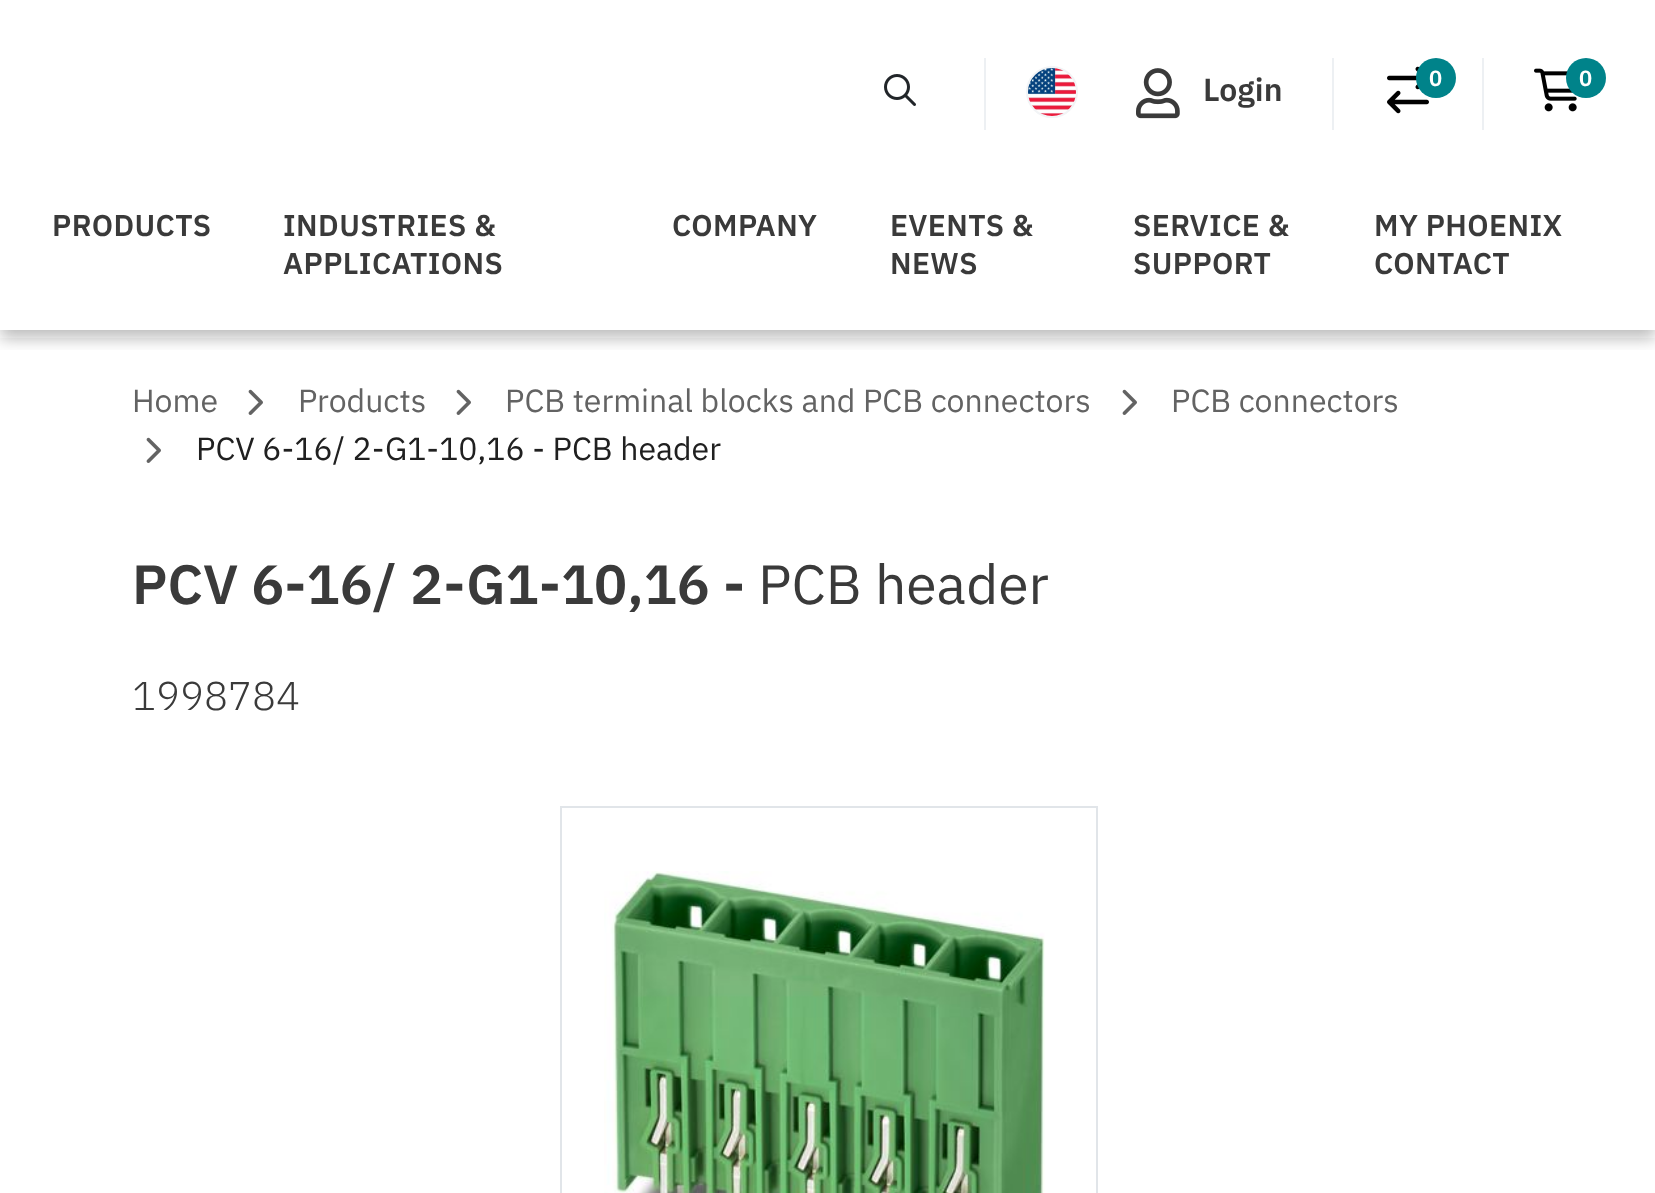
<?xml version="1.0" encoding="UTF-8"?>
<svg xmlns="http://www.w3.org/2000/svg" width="1655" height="1193">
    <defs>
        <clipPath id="clip1"><rect x="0" y="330" width="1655" height="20"/></clipPath>
        <filter id="blur1" x="-50%" y="-200%" width="200%" height="500%"><feGaussianBlur stdDeviation="8"/></filter>
    </defs>
    <rect width="100%" height="100%" fill="#FFFFFF"/>
    <g clip-path="url(#clip1)">
        <rect x="0" y="8" width="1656" height="330" fill="#202020" fill-opacity="0.3" filter="url(#blur1)"/>
    </g>
    <rect x="984" y="58" width="2" height="72" fill="#EDF0F3"/>
    <image x="884" y="74" width="32" height="32" href="img_01.png"/>
    <image x="1026" y="66" width="52" height="52" href="img_02.png"/>
    <rect x="1332" y="58" width="2" height="72" fill="#EDF0F3"/>
    <image x="1136" y="68" width="44" height="51" href="img_03.png"/>
    <text x="1203" y="101" font-family="IBM Plex Sans" font-size="32" font-weight="600" fill="#3A3A3A">Login</text>
    <rect x="1482" y="58" width="2" height="72" fill="#EDF0F3"/>
    <image x="1387" y="66" width="42" height="48" href="img_04.png"/>
    <circle cx="1436" cy="78" r="20" fill="#00838A"/>
    <text x="1429" y="86" font-family="IBM Plex Sans" font-size="22" font-weight="600" fill="#FFFFFF">0</text>
    <image x="1534" y="68" width="43" height="44" href="img_05.png"/>
    <circle cx="1586" cy="78" r="20" fill="#00838A"/>
    <text x="1579" y="86" font-family="IBM Plex Sans" font-size="22" font-weight="600" fill="#FFFFFF">0</text>
    <text x="52" y="236" font-family="IBM Plex Sans" font-size="30" font-weight="600" letter-spacing="0.4" fill="#3A3A3A">PRODUCTS</text>
    <text font-family="IBM Plex Sans" font-size="30" font-weight="600" letter-spacing="0.4" fill="#3A3A3A">
        <tspan x="283" y="236">INDUSTRIES &amp;</tspan>
        <tspan x="283" y="274">APPLICATIONS</tspan>
    </text>
    <text x="672" y="236" font-family="IBM Plex Sans" font-size="30" font-weight="600" letter-spacing="0.4" fill="#3A3A3A">COMPANY</text>
    <text font-family="IBM Plex Sans" font-size="30" font-weight="600" letter-spacing="0.4" fill="#3A3A3A">
        <tspan x="890" y="236">EVENTS &amp;</tspan>
        <tspan x="890" y="274">NEWS</tspan>
    </text>
    <text font-family="IBM Plex Sans" font-size="30" font-weight="600" letter-spacing="0.4" fill="#3A3A3A">
        <tspan x="1133" y="236">SERVICE &amp;</tspan>
        <tspan x="1133" y="274">SUPPORT</tspan>
    </text>
    <text font-family="IBM Plex Sans" font-size="30" font-weight="600" letter-spacing="0.4" fill="#3A3A3A">
        <tspan x="1374" y="236">MY PHOENIX</tspan>
        <tspan x="1374" y="274">CONTACT</tspan>
    </text>
    <text x="132" y="412" font-family="IBM Plex Sans" font-size="32" fill="#636363">Home</text>
    <image x="248" y="389" width="15" height="26" href="img_06.png"/>
    <text x="298" y="412" font-family="IBM Plex Sans" font-size="32" fill="#636363">Products</text>
    <image x="456" y="389" width="15" height="26" href="img_06.png"/>
    <text x="505" y="412" font-family="IBM Plex Sans" font-size="32" fill="#636363">PCB terminal blocks and PCB connectors</text>
    <image x="1122" y="389" width="15" height="26" href="img_06.png"/>
    <text x="1171" y="412" font-family="IBM Plex Sans" font-size="32" fill="#636363">PCB connectors</text>
    <image x="146" y="437" width="15" height="26" href="img_06.png"/>
    <text x="196" y="460" font-family="IBM Plex Sans" font-size="32" fill="#202020">PCV 6-16/ 2-G1-10,16 - PCB header</text>
    <text x="132" y="604" font-family="IBM Plex Sans" font-size="55.25" font-weight="600" fill="#3A3A3A">PCV 6-16/ 2-G1-10,16</text>
    <text x="723" y="604" font-family="IBM Plex Sans" font-size="55.25" font-weight="600" fill="#3A3A3A">-</text>
    <text x="758" y="604" font-family="IBM Plex Sans" font-size="55.25" fill="#3A3A3A">PCB header</text>
    <text x="132" y="710" font-family="IBM Plex Sans" font-size="40" font-weight="300" fill="#3A3A3A">1998784</text>
    <rect x="561" y="807" width="536" height="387" fill="none" stroke="#E1E5E9" stroke-width="2"/>
    <image x="604" y="871" width="441" height="322" href="img_07.png"/>
</svg>
